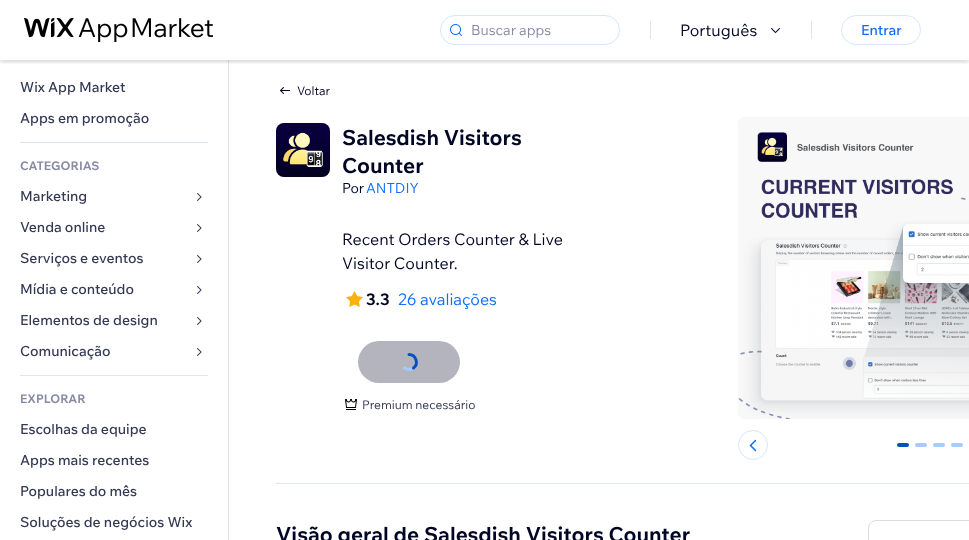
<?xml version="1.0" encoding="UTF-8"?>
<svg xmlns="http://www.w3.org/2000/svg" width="969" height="540">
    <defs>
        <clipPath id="clip1"><rect x="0" y="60" width="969" height="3"/></clipPath>
        <filter id="blur1" x="-50%" y="-200%" width="200%" height="500%"><feGaussianBlur stdDeviation="3"/></filter>
        <clipPath id="clip2"><rect x="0" y="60" width="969" height="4"/></clipPath>
        <filter id="blur2" x="-50%" y="-200%" width="200%" height="500%"><feGaussianBlur stdDeviation="2"/></filter>
    </defs>
    <rect width="100%" height="100%" fill="#FFFFFF"/>
    <rect x="228" y="60" width="1" height="480" fill="#DFE5EB"/>
    <g clip-path="url(#clip1)">
        <rect x="0" y="0" width="969" height="60" fill="#162D3D" fill-opacity="0.12" filter="url(#blur1)"/>
    </g>
    <g clip-path="url(#clip2)">
        <rect x="0" y="2" width="969" height="60" fill="#162D3D" fill-opacity="0.12" filter="url(#blur2)"/>
    </g>
    <image x="24" y="18" width="189" height="24" href="img_01.png"/>
    <rect x="440.5" y="15.5" width="179" height="29" rx="14.5" fill="none" stroke="#D6E6FE"/>
    <image x="450" y="24" width="12" height="12" href="img_02.png"/>
    <text x="471" y="35" font-family="Wix Madefor Text" font-size="14" fill="#868AA5">Buscar apps</text>
    <rect x="650" y="21" width="1" height="18" fill="#DFE5EB"/>
    <text x="680" y="36" font-family="Wix Madefor Text" font-size="16" fill="#000624">Português</text>
    <image x="771" y="28" width="9" height="6" href="img_03.png"/>
    <rect x="811" y="21" width="1" height="18" fill="#DFE5EB"/>
    <rect x="841.5" y="15.5" width="79" height="29" rx="14.5" fill="none" stroke="#D6E6FE"/>
    <text x="861" y="35" font-family="Wix Madefor Text" font-size="14" font-weight="500" fill="#116DFF">Entrar</text>
    <text x="20" y="92" font-family="Wix Madefor Text" font-size="14" font-weight="500" fill="#333853">Wix App Market</text>
    <text x="20" y="123" font-family="Wix Madefor Text" font-size="14" font-weight="500" fill="#333853">Apps em promoção</text>
    <rect x="20" y="142" width="188" height="1" fill="#DFE5EB"/>
    <text x="20" y="170" font-family="Wix Madefor Text" font-size="12" font-weight="700" fill="#868AA5">CATEGORIAS</text>
    <text x="20" y="201" font-family="Wix Madefor Text" font-size="14" font-weight="500" fill="#333853">Marketing</text>
    <image x="197" y="193" width="5" height="8" href="img_04.png"/>
    <text x="20" y="232" font-family="Wix Madefor Text" font-size="14" font-weight="500" fill="#333853">Venda online</text>
    <image x="197" y="224" width="5" height="8" href="img_04.png"/>
    <text x="20" y="263" font-family="Wix Madefor Text" font-size="14" font-weight="500" fill="#333853">Serviços e eventos</text>
    <image x="197" y="255" width="5" height="8" href="img_04.png"/>
    <text x="20" y="294" font-family="Wix Madefor Text" font-size="14" font-weight="500" fill="#333853">Mídia e conteúdo</text>
    <image x="197" y="286" width="5" height="8" href="img_04.png"/>
    <text x="20" y="325" font-family="Wix Madefor Text" font-size="14" font-weight="500" fill="#333853">Elementos de design</text>
    <image x="197" y="317" width="5" height="8" href="img_04.png"/>
    <text x="20" y="356" font-family="Wix Madefor Text" font-size="14" font-weight="500" fill="#333853">Comunicação</text>
    <image x="197" y="348" width="5" height="8" href="img_04.png"/>
    <rect x="20" y="375" width="188" height="1" fill="#DFE5EB"/>
    <text x="20" y="403" font-family="Wix Madefor Text" font-size="12" font-weight="700" fill="#868AA5">EXPLORAR</text>
    <text x="20" y="434" font-family="Wix Madefor Text" font-size="14" font-weight="500" fill="#333853">Escolhas da equipe</text>
    <text x="20" y="465" font-family="Wix Madefor Text" font-size="14" font-weight="500" fill="#333853">Apps mais recentes</text>
    <text x="20" y="496" font-family="Wix Madefor Text" font-size="14" font-weight="500" fill="#333853">Populares do mês</text>
    <text x="20" y="527" font-family="Wix Madefor Text" font-size="14" font-weight="500" fill="#333853">Soluções de negócios Wix</text>
    <image x="279" y="87" width="11" height="7" href="img_05.png"/>
    <text x="297" y="95" font-family="Wix Madefor Text" font-size="12" fill="#000624">Voltar</text>
    <rect x="276" y="123" width="54" height="54" rx="8" fill="#DFE5EB"/>
    <image x="276" y="123" width="54" height="54" href="img_06.png"/>
    <text font-family="Wix Madefor Text" font-size="21" font-weight="700" fill="#000624">
        <tspan x="342" y="145">Salesdish Visitors</tspan>
        <tspan x="342" y="173">Counter</tspan>
    </text>
    <text x="342" y="193" font-family="Wix Madefor Text" font-size="14" fill="#000624">Por</text>
    <text x="366" y="193" font-family="Wix Madefor Text" font-size="14" fill="#116DFF">ANTDIY</text>
    <text font-family="Wix Madefor Text" font-size="16" fill="#000624">
        <tspan x="342" y="245">Recent Orders Counter &amp; Live</tspan>
        <tspan x="342" y="269">Visitor Counter.</tspan>
    </text>
    <image x="346" y="291" width="17" height="16" href="img_07.png"/>
    <text x="366" y="305" font-family="Wix Madefor Text" font-size="16" font-weight="700" fill="#000624">3.3</text>
    <text x="398" y="305" font-family="Wix Madefor Text" font-size="16" fill="#116DFF">26 avaliações</text>
    <rect x="358" y="341" width="102" height="42" rx="21" fill="#B3B4BD"/>
    <path d="M 404.5 368 C 406 369 408 369.5 410 369.5 C 419 368 418 354.5 409 354.5" fill="none" stroke="#A8CAFF" stroke-width="3" stroke-linecap="round"/>
    <path d="M 413.5 368 C 419 364 416 354.5 409 354.5" fill="none" stroke="#084EBD" stroke-width="3" stroke-linecap="round"/>
    <image x="345" y="399" width="12" height="11" href="img_08.png"/>
    <text x="362" y="409" font-family="Wix Madefor Text" font-size="12" fill="#333853">Premium necessário</text>
    <rect x="738" y="117" width="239" height="302" rx="8" fill="#DFE5EB"/>
    <image x="738" y="117" width="231" height="302" href="img_09.png"/>
    <circle cx="753" cy="445" r="14.5" fill="none" stroke="#D6E6FE"/>
    <image x="749" y="439" width="8" height="13" href="img_10.png"/>
    <rect x="897" y="443" width="12" height="4" rx="2" fill="#084EBD"/>
    <rect x="915" y="443" width="12" height="4" rx="2" fill="#A8CAFF"/>
    <rect x="933" y="443" width="12" height="4" rx="2" fill="#A8CAFF"/>
    <rect x="951" y="443" width="12" height="4" rx="2" fill="#A8CAFF"/>
    <rect x="276" y="483" width="693" height="1" fill="#DFE5EB"/>
    <text x="276" y="542" font-family="Wix Madefor Text" font-size="21" font-weight="700" fill="#000624">Visão geral de Salesdish Visitors Counter</text>
    <rect x="868.5" y="520.5" width="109" height="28" rx="7.5" fill="none" stroke="#DCDCDC"/>
</svg>
